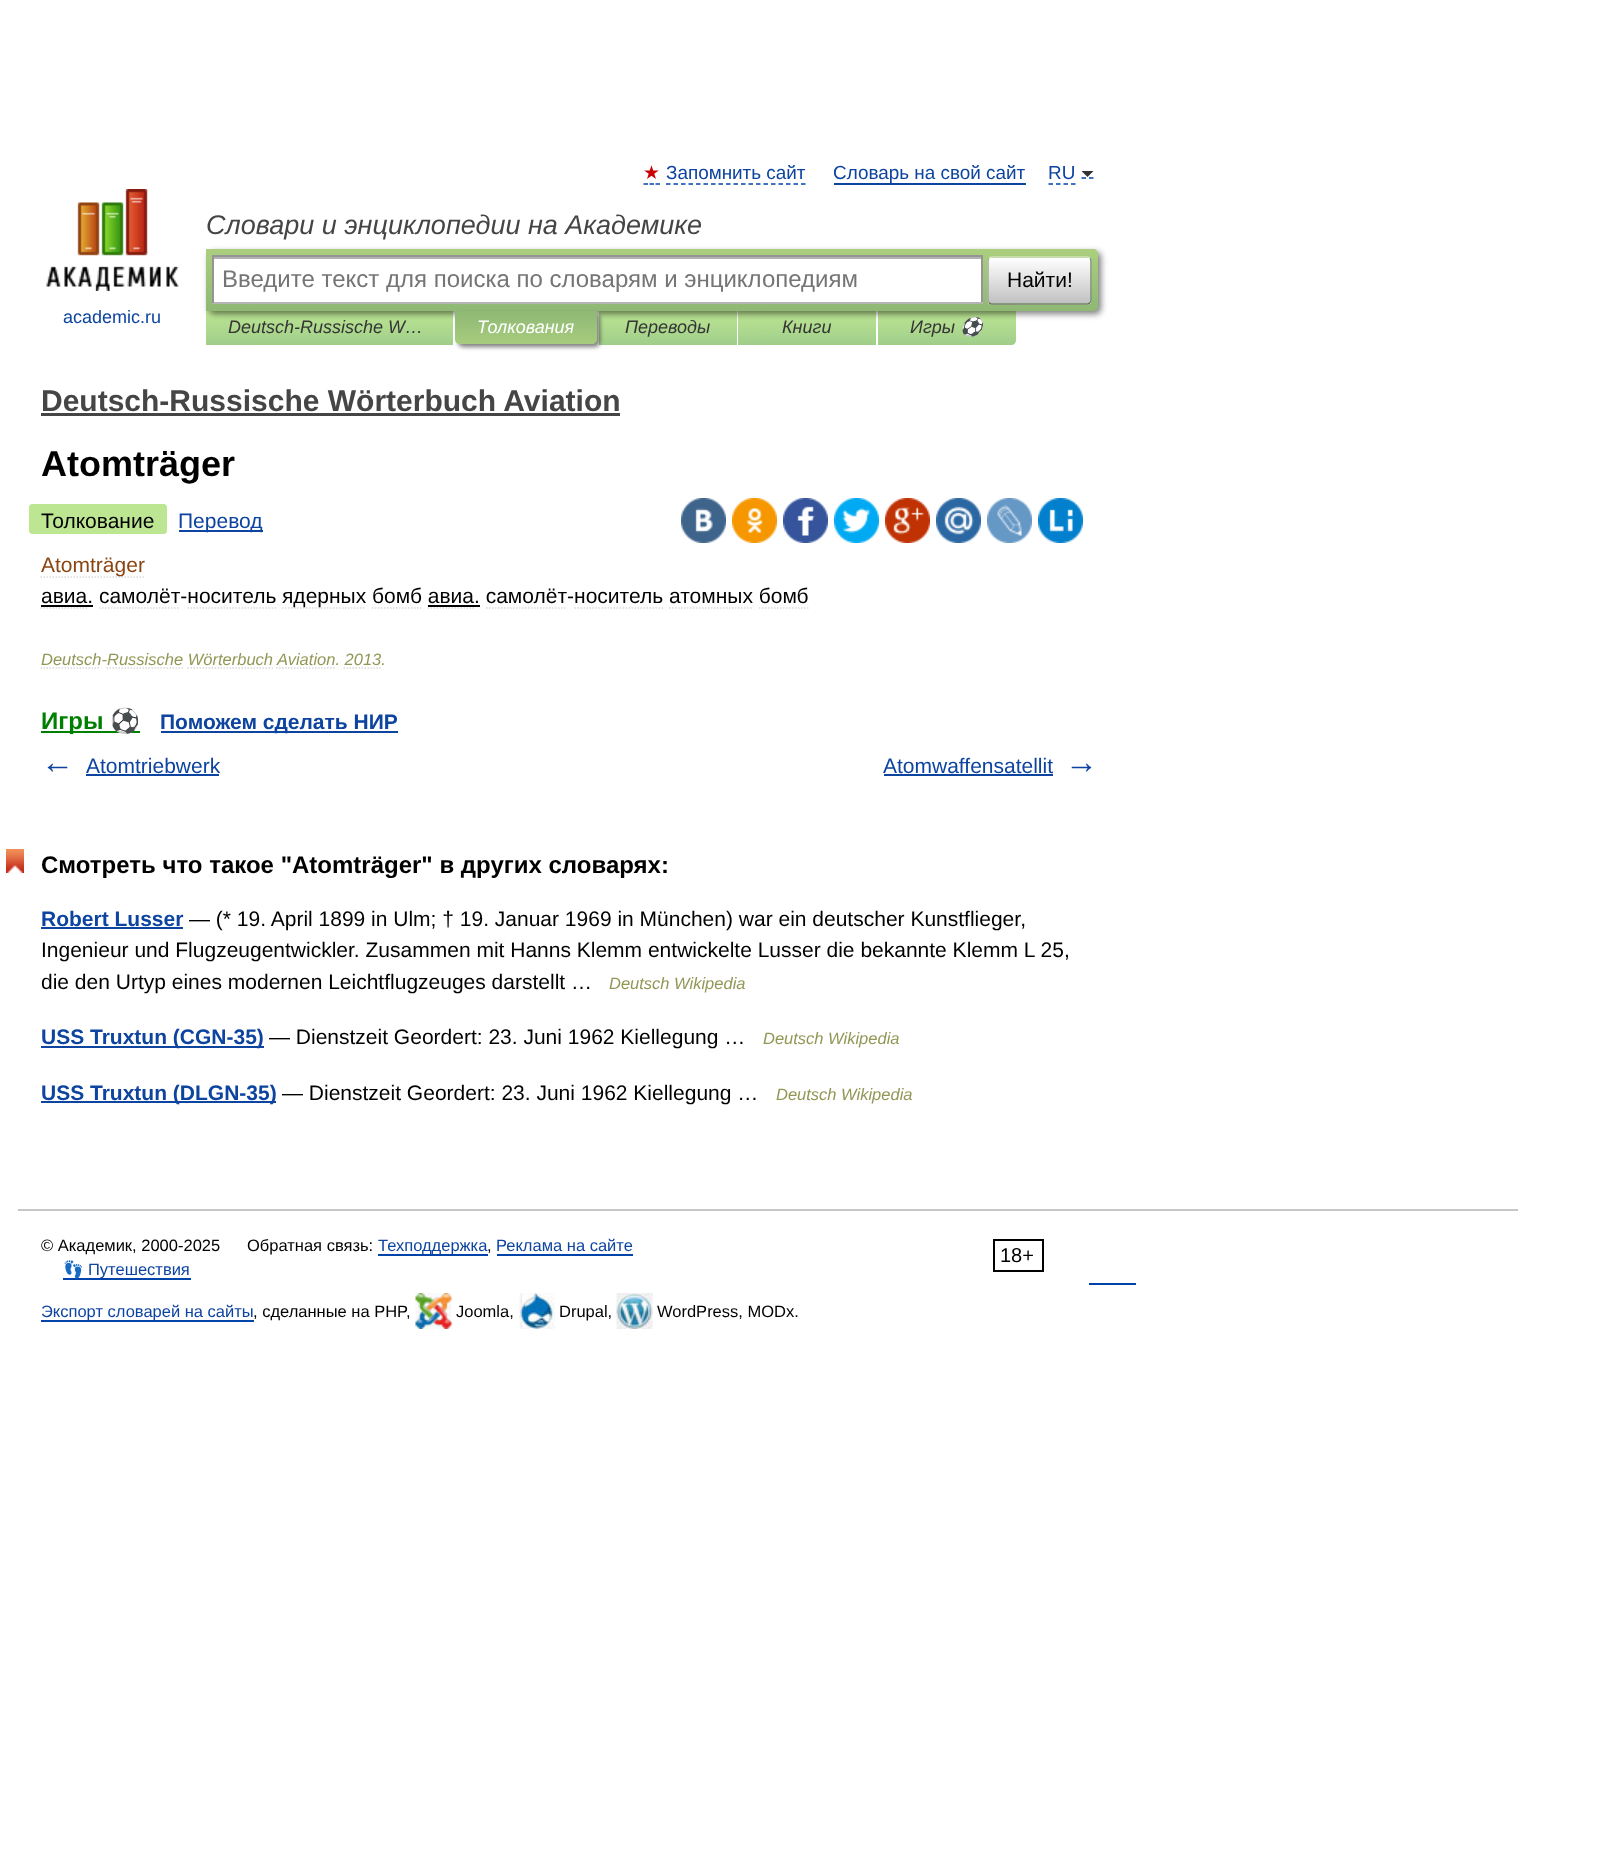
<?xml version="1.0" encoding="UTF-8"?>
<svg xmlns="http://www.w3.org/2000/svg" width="1610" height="1851">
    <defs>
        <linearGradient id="g1" gradientUnits="userSpaceOnUse" x1="329" y1="311" x2="329" y2="345"><stop offset="0" stop-color="#BDE693"/><stop offset="1" stop-color="#A0CE8A"/></linearGradient>
        <linearGradient id="g2" gradientUnits="userSpaceOnUse" x1="668" y1="311" x2="668" y2="345"><stop offset="0" stop-color="#BDE693"/><stop offset="1" stop-color="#A0CE8A"/></linearGradient>
        <linearGradient id="g3" gradientUnits="userSpaceOnUse" x1="807" y1="311" x2="807" y2="345"><stop offset="0" stop-color="#BDE693"/><stop offset="1" stop-color="#A0CE8A"/></linearGradient>
        <linearGradient id="g4" gradientUnits="userSpaceOnUse" x1="947" y1="311" x2="947" y2="345"><stop offset="0" stop-color="#BDE693"/><stop offset="1" stop-color="#A0CE8A"/></linearGradient>
        <filter id="blur1" x="-50%" y="-200%" width="200%" height="500%"><feGaussianBlur stdDeviation="3"/></filter>
        <linearGradient id="g5" gradientUnits="userSpaceOnUse" x1="652" y1="249" x2="652" y2="311"><stop offset="0" stop-color="#ABCF7E"/><stop offset="1" stop-color="#8EB874"/></linearGradient>
        <clipPath id="clip1"><rect x="987" y="257" width="105" height="48" rx="5"/></clipPath>
        <linearGradient id="g6" gradientUnits="userSpaceOnUse" x1="1040" y1="258" x2="1040" y2="303"><stop offset="0" stop-color="#FFFFFF"/><stop offset="1" stop-color="#C1C1C1"/></linearGradient>
        <linearGradient id="g7" gradientUnits="userSpaceOnUse" x1="1040" y1="303" x2="1040" y2="348"><stop offset="0" stop-color="#FFFFFF"/><stop offset="1" stop-color="#C1C1C1"/></linearGradient>
        <filter id="blur2" x="-50%" y="-200%" width="200%" height="500%"><feGaussianBlur stdDeviation="2"/></filter>
        <linearGradient id="g8" gradientUnits="userSpaceOnUse" x1="526" y1="311" x2="526" y2="344"><stop offset="0" stop-color="#8FB875"/><stop offset="1" stop-color="#A7CC7D"/></linearGradient>
    </defs>
    <rect width="100%" height="100%" fill="#FFFFFF"/>
    <text x="643" y="179" font-family="DejaVu Sans" font-size="18.9" fill="#CC0000">★</text>
    <path d="M 643.5 184 H 648 M 649.5 184 H 654 M 655.5 184 H 660" fill="none" stroke="#0044AA" stroke-width="1.5"/>
    <text x="666" y="179" font-family="Liberation Sans" font-size="18.9" fill="#0D44A0">Запомнить сайт</text>
    <path d="M 666 184 H 805.5" fill="none" stroke="#0044AA" stroke-width="1.5" stroke-dasharray="4.5 3"/>
    <text x="833" y="179" font-family="Liberation Sans" font-size="18.9" fill="#0D44A0">Словарь на свой сайт</text>
    <rect x="834" y="183" width="192" height="2" fill="#0D44A0"/>
    <path d="M 1048.5 184 H 1075.5" fill="none" stroke="#0044AA" stroke-width="1.5" stroke-dasharray="4.5 3"/>
    <path d="M 1081.5 178 H 1086 M 1089 178 H 1093.5" fill="none" stroke="#0044AA" stroke-width="1.5"/>
    <text x="1048" y="179" font-family="Liberation Sans" font-size="18.9" fill="#0D44A0">RU</text>
    <path d="M 1081.5 171 H 1093.5 L 1087.5 177 Z" fill="#333333"/>
    <text x="206" y="234" font-family="Liberation Sans" font-size="27" font-style="italic" fill="#454545">Словари и энциклопедии на Академике</text>
    <rect x="206" y="311" width="247" height="34" fill="url(#g1)"/>
    <rect x="599" y="311" width="138" height="34" fill="url(#g2)"/>
    <rect x="738" y="311" width="138" height="34" fill="url(#g3)"/>
    <path d="M 878 311 H 1016 V 340 C 1016 343 1014 345 1011 345 H 878 Z" fill="url(#g4)"/>
    <rect x="209" y="252" width="892" height="62" rx="5" fill="#000000" fill-opacity="0.5" filter="url(#blur1)"/>
    <path d="M 206 249 H 1093 C 1096 249 1098 251 1098 254 V 306 C 1098 309 1096 311 1093 311 H 206 Z" fill="url(#g5)"/>
    <rect x="214" y="259" width="767" height="43" fill="#FFFFFF"/>
    <rect x="213" y="257" width="768" height="2" fill="#B3B3B3"/>
    <rect x="212" y="255" width="771" height="2" fill="#949494"/>
    <rect x="981" y="255" width="2" height="48" fill="#949494"/>
    <rect x="212" y="302" width="771" height="2" fill="#B4B4B4"/>
    <rect x="212" y="255" width="2" height="48" fill="#949494"/>
    <text x="222" y="287" font-family="Liberation Sans" font-size="24" fill="#757575">Введите текст для поиска по словарям и энциклопедиям</text>
    <g clip-path="url(#clip1)">
        <rect x="987" y="258" width="105" height="45" fill="url(#g6)"/>
        <rect x="987" y="303" width="105" height="2" fill="url(#g7)"/>
    </g>
    <path d="M 989 258.5 C 989.5 257.5 990.5 257 991.5 257 H 1087.5 C 1088.5 257 1089.5 257.5 1090 258.5" fill="none" stroke="#D1E4BC" stroke-width="1.5"/>
    <path d="M 1090 258.5 C 1091 259 1091 260 1091 261 V 300 C 1091 301 1091 302 1090 302.5" fill="none" stroke="#7A8E69" stroke-width="1.5"/>
    <path d="M 1090 302.5 C 1089.5 303.5 1088.5 304 1087.5 304 H 991.5 C 990.5 304 989.5 303.5 989 302.5" fill="none" stroke="#5D7250" stroke-width="1.5"/>
    <path d="M 989 302.5 C 988 302 988 301 988 300 V 261 C 988 260 988 259 989 258.5" fill="none" stroke="#9AAE89" stroke-width="1.5"/>
    <text x="1007" y="287" font-family="Liberation Sans" font-size="21" fill="#000000">Найти!</text>
    <image x="46" y="189" width="133" height="102" href="img_01.png"/>
    <text x="63" y="323" font-family="Liberation Sans" font-size="18" fill="#0D44A0">academic.ru</text>
    <text x="228" y="333" font-family="Liberation Sans" font-size="18" font-style="italic" fill="#353535">Deutsch-Russische W…</text>
    <rect x="458" y="314" width="142" height="33" rx="5" fill="#000000" fill-opacity="0.5" filter="url(#blur2)"/>
    <path d="M 455 311 H 597 V 339 C 597 342 595 344 592 344 H 460 C 457 344 455 342 455 339 Z" fill="url(#g8)"/>
    <text x="477" y="333" font-family="Liberation Sans" font-size="18" font-style="italic" fill="#FFFFFF">Толкования</text>
    <text x="625" y="333" font-family="Liberation Sans" font-size="18" font-style="italic" fill="#353535">Переводы</text>
    <text x="782" y="333" font-family="Liberation Sans" font-size="18" font-style="italic" fill="#353535">Книги</text>
    <text x="910" y="333" font-family="Liberation Sans" font-size="18" font-style="italic" fill="#353535">Игры</text>
    <text x="960" y="333" font-family="Noto Color Emoji" font-size="18" font-style="italic" fill="#353535">⚽</text>
    <text x="41" y="411" font-family="Liberation Sans" font-size="30" font-weight="700" fill="#454545">Deutsch-Russische Wörterbuch Aviation</text>
    <rect x="41" y="413" width="579" height="3" fill="#454545"/>
    <text x="41" y="476" font-family="Liberation Sans" font-size="36" font-weight="700" fill="#000000">Atomträger</text>
    <path d="M 32 504 H 41 V 534 H 32 C 30.5 534 29 532.5 29 531 V 507 C 29 505.5 30.5 504 32 504 Z" fill="#BDE693"/>
    <path d="M 41 504 H 164 C 165.5 504 167 505.5 167 507 V 531 C 167 532.5 165.5 534 164 534 H 41 Z" fill="#BDE693"/>
    <text x="41" y="528" font-family="Liberation Sans" font-size="21" fill="#000000">Толкование</text>
    <rect x="179" y="530" width="84" height="2" fill="#0D44A0"/>
    <text x="178" y="528" font-family="Liberation Sans" font-size="21" fill="#0D44A0">Перевод</text>
    <image x="681" y="498" width="45" height="45" href="img_02.png"/>
    <image x="732" y="498" width="45" height="45" href="img_03.png"/>
    <image x="783" y="498" width="45" height="45" href="img_04.png"/>
    <image x="834" y="498" width="45" height="45" href="img_05.png"/>
    <image x="885" y="498" width="45" height="45" href="img_06.png"/>
    <image x="936" y="498" width="45" height="45" href="img_07.png"/>
    <image x="987" y="498" width="45" height="45" href="img_08.png"/>
    <image x="1038" y="498" width="45" height="45" href="img_09.png"/>
    <path d="M 40.5 577 H 144" fill="none" stroke="#D9D9D9" stroke-width="1.5" stroke-dasharray="1.5 1.5"/>
    <text x="41" y="572" font-family="Liberation Sans" font-size="21" fill="#8B4513">Atomträger</text>
    <text x="41" y="603" font-family="Liberation Sans" font-size="21" fill="#000000">авиа. самолёт-носитель</text>
    <path d="M 40.5 608 H 87" fill="none" stroke="#D9D9D9" stroke-width="1.5" stroke-dasharray="1.5 1.5"/>
    <rect x="41" y="605" width="52" height="2" fill="#000000"/>
    <path d="M 282 608 H 366" fill="none" stroke="#D9D9D9" stroke-width="1.5" stroke-dasharray="1.5 1.5"/>
    <text x="282" y="603" font-family="Liberation Sans" font-size="21" fill="#000000">ядерных бомб авиа. самолёт-носитель атомных бомб</text>
    <rect x="428" y="605" width="52" height="2" fill="#000000"/>
    <path d="M 99 608 H 180" fill="none" stroke="#D9D9D9" stroke-width="1.5" stroke-dasharray="1.5 1.5"/>
    <path d="M 187.5 608 H 276" fill="none" stroke="#D9D9D9" stroke-width="1.5" stroke-dasharray="1.5 1.5"/>
    <path d="M 372 608 H 421.5" fill="none" stroke="#D9D9D9" stroke-width="1.5" stroke-dasharray="1.5 1.5"/>
    <path d="M 427.5 608 H 474" fill="none" stroke="#D9D9D9" stroke-width="1.5" stroke-dasharray="1.5 1.5"/>
    <path d="M 486 608 H 567" fill="none" stroke="#D9D9D9" stroke-width="1.5" stroke-dasharray="1.5 1.5"/>
    <path d="M 574.5 608 H 663" fill="none" stroke="#D9D9D9" stroke-width="1.5" stroke-dasharray="1.5 1.5"/>
    <path d="M 669 608 H 753" fill="none" stroke="#D9D9D9" stroke-width="1.5" stroke-dasharray="1.5 1.5"/>
    <path d="M 759 608 H 808.5" fill="none" stroke="#D9D9D9" stroke-width="1.5" stroke-dasharray="1.5 1.5"/>
    <text x="41" y="665" font-family="Liberation Sans" font-size="16.5" font-style="italic" fill="#939756">Deutsch-Russische Wörterbuch</text>
    <path d="M 40.5 668 H 100.5" fill="none" stroke="#D9D9D9" stroke-width="1.5" stroke-dasharray="1.5 1.5"/>
    <path d="M 106.5 668 H 183" fill="none" stroke="#D9D9D9" stroke-width="1.5" stroke-dasharray="1.5 1.5"/>
    <path d="M 187.5 668 H 273" fill="none" stroke="#D9D9D9" stroke-width="1.5" stroke-dasharray="1.5 1.5"/>
    <text x="277" y="665" font-family="Liberation Sans" font-size="16.5" font-style="italic" fill="#939756">Aviation. 2013.</text>
    <path d="M 276 668 H 334.5" fill="none" stroke="#D9D9D9" stroke-width="1.5" stroke-dasharray="1.5 1.5"/>
    <path d="M 343.5 668 H 381" fill="none" stroke="#D9D9D9" stroke-width="1.5" stroke-dasharray="1.5 1.5"/>
    <rect x="41" y="731" width="99" height="2" fill="#008000"/>
    <text x="41" y="729" font-family="Liberation Sans" font-size="24" font-weight="700" fill="#008000">Игры</text>
    <text x="110" y="729" font-family="Noto Color Emoji" font-size="24" font-weight="700" fill="#008000">⚽</text>
    <rect x="161" y="731" width="237" height="2" fill="#0D44A0"/>
    <text x="160" y="729" font-family="Liberation Sans" font-size="21" font-weight="700" fill="#0D44A0">Поможем сделать НИР</text>
    <text x="41" y="773" font-family="Liberation Sans" font-size="33" font-weight="700" fill="#0D44A0">←</text>
    <text x="86" y="773" font-family="Liberation Sans" font-size="21" fill="#0D44A0">Atomtriebwerk</text>
    <rect x="86" y="774" width="133" height="2" fill="#0D44A0"/>
    <text x="883" y="773" font-family="Liberation Sans" font-size="21" fill="#0D44A0">Atomwaffensatellit</text>
    <rect x="884" y="774" width="169" height="2" fill="#0D44A0"/>
    <text x="1065" y="773" font-family="Liberation Sans" font-size="33" font-weight="700" fill="#0D44A0">→</text>
    <image x="6" y="849" width="18" height="24" href="img_10.png"/>
    <text x="41" y="873" font-family="Liberation Sans" font-size="24" font-weight="700" fill="#000000">Смотреть что такое "Atomträger" в других словарях:</text>
    <text x="41" y="926" font-family="Liberation Sans" font-size="21" font-weight="700" fill="#0D44A0">Robert Lusser</text>
    <rect x="41" y="927" width="142" height="2" fill="#0D44A0"/>
    <text x="189" y="926" font-family="Liberation Sans" font-size="21" fill="#000000">— (* 19. April 1899 in Ulm; † 19. Januar 1969 in München) war ein deutscher Kunstflieger,</text>
    <text font-family="Liberation Sans" font-size="21" fill="#000000">
        <tspan x="41" y="957">Ingenieur und Flugzeugentwickler. Zusammen mit Hanns Klemm entwickelte Lusser die bekannte Klemm L 25,</tspan>
        <tspan x="41" y="989">die den Urtyp eines modernen Leichtflugzeuges darstellt …</tspan>
    </text>
    <text x="609" y="989" font-family="Liberation Sans" font-size="16.5" font-style="italic" fill="#939756">Deutsch Wikipedia</text>
    <rect x="41" y="1046" width="223" height="2" fill="#0D44A0"/>
    <text x="41" y="1044" font-family="Liberation Sans" font-size="21" font-weight="700" fill="#0D44A0">USS Truxtun (CGN-35)</text>
    <text x="269" y="1044" font-family="Liberation Sans" font-size="21" fill="#000000">— Dienstzeit Geordert: 23. Juni 1962 Kiellegung …</text>
    <text x="763" y="1044" font-family="Liberation Sans" font-size="16.5" font-style="italic" fill="#939756">Deutsch Wikipedia</text>
    <rect x="41" y="1101" width="235" height="2" fill="#0D44A0"/>
    <text x="41" y="1100" font-family="Liberation Sans" font-size="21" font-weight="700" fill="#0D44A0">USS Truxtun (DLGN-35)</text>
    <text x="282" y="1100" font-family="Liberation Sans" font-size="21" fill="#000000">— Dienstzeit Geordert: 23. Juni 1962 Kiellegung …</text>
    <text x="776" y="1100" font-family="Liberation Sans" font-size="16.5" font-style="italic" fill="#939756">Deutsch Wikipedia</text>
    <rect x="18" y="1209" width="1500" height="2" fill="#C7C7C7"/>
    <text x="41" y="1251" font-family="Liberation Sans" font-size="16.5" fill="#000000">© Академик, 2000-2025</text>
    <text x="247" y="1251" font-family="Liberation Sans" font-size="16.5" fill="#000000">Обратная связь:</text>
    <rect x="378" y="1254" width="110" height="2" fill="#0044AA"/>
    <text x="378" y="1251" font-family="Liberation Sans" font-size="16.5" fill="#0D44A0">Техподдержка</text>
    <text x="487" y="1251" font-family="Liberation Sans" font-size="16.5" fill="#000000">,</text>
    <rect x="497" y="1254" width="136" height="2" fill="#0044AA"/>
    <text x="496" y="1251" font-family="Liberation Sans" font-size="16.5" fill="#0D44A0">Реклама на сайте</text>
    <rect x="994" y="1240" width="49" height="31" fill="none" stroke="#000000" stroke-width="2"/>
    <text x="1000" y="1262" font-family="Liberation Sans" font-size="20" fill="#000000">18+</text>
    <rect x="63" y="1278" width="128" height="2" fill="#0044AA"/>
    <text x="63" y="1275" font-family="Noto Color Emoji" font-size="16.5" fill="#0D44A0">👣</text>
    <text x="88" y="1275" font-family="Liberation Sans" font-size="16.5" fill="#0D44A0">Путешествия</text>
    <rect x="1089" y="1283" width="47" height="2" fill="#0044AA"/>
    <rect x="41" y="1320" width="213" height="2" fill="#0044AA"/>
    <text x="41" y="1317" font-family="Liberation Sans" font-size="16.5" fill="#0D44A0">Экспорт словарей на сайты</text>
    <text x="253" y="1317" font-family="Liberation Sans" font-size="16.5" fill="#000000">, сделанные на PHP,</text>
    <image x="415" y="1293" width="37" height="36" href="img_11.png"/>
    <text x="456" y="1317" font-family="Liberation Sans" font-size="16.5" fill="#000000">Joomla,</text>
    <image x="519" y="1293" width="36" height="36" href="img_12.png"/>
    <text x="559" y="1317" font-family="Liberation Sans" font-size="16.5" fill="#000000">Drupal,</text>
    <image x="616" y="1293" width="37" height="36" href="img_13.png"/>
    <text x="657" y="1317" font-family="Liberation Sans" font-size="16.5" fill="#000000">WordPress, MODx.</text>
</svg>
